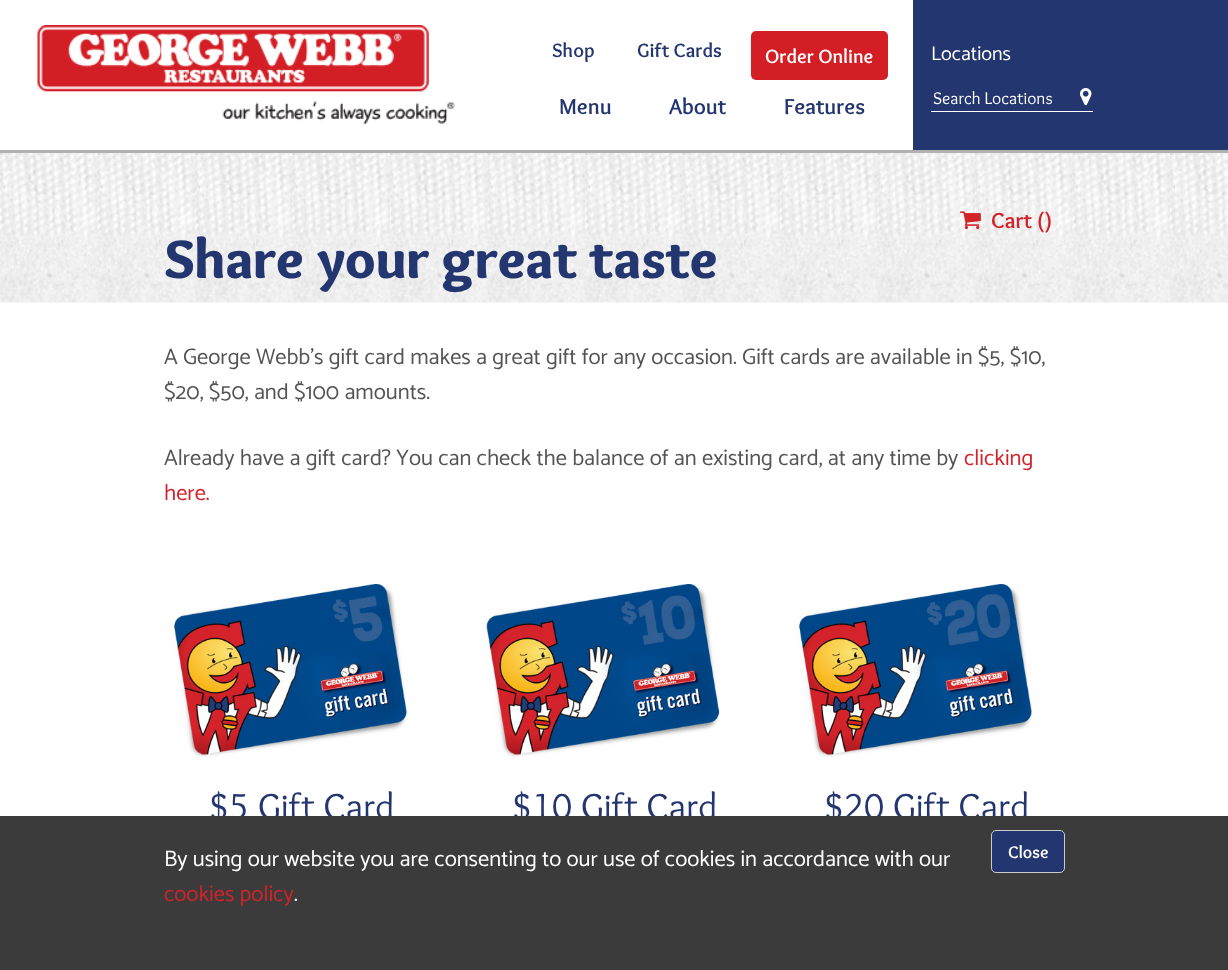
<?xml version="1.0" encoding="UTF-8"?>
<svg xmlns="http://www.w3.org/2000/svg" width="1228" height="970">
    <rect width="100%" height="100%" fill="#FFFFFF"/>
    <rect x="0" y="150" width="1228" height="3" fill="#B1B1B1"/>
    <image x="37" y="25" width="418" height="99" href="img_01.png"/>
    <text x="552" y="57" font-family="Overlock" font-size="20" font-weight="700" fill="#24366F">Shop</text>
    <text x="637" y="57" font-family="Overlock" font-size="20" font-weight="700" fill="#24366F">Gift Cards</text>
    <rect x="751" y="31" width="137" height="49" rx="5" fill="#D31E25"/>
    <text x="765" y="63" font-family="Overlock" font-size="20" font-weight="700" fill="#FFFFFF">Order Online</text>
    <text x="559" y="114" font-family="Overlock" font-size="22.5" font-weight="700" fill="#24366F">Menu</text>
    <text x="669" y="114" font-family="Overlock" font-size="22.5" font-weight="700" fill="#24366F">About</text>
    <text x="784" y="114" font-family="Overlock" font-size="22.5" font-weight="700" fill="#24366F">Features</text>
    <rect x="913" y="0" width="315" height="150" fill="#24366F"/>
    <text x="931" y="60" font-family="Catamaran" font-size="20" fill="#FFFFFF">Locations</text>
    <rect x="931" y="111" width="162" height="1" fill="#FFFFFF"/>
    <text x="933" y="104" font-family="Overlock" font-size="17.5" fill="#FFFFFF">Search Locations</text>
    <image x="1080" y="88" width="12" height="18" href="img_02.png"/>
    <image x="0" y="153" width="1228" height="150" href="img_03.png"/>
    <image x="960" y="211" width="21" height="19" href="img_04.png"/>
    <text x="991" y="228" font-family="Overlock" font-size="22.5" font-weight="700" fill="#D2232A">Cart ()</text>
    <text x="164" y="278" font-family="Overlock" font-size="56.25" font-weight="900" fill="#24366F">Share your great taste</text>
    <text font-family="Catamaran" font-size="22.5" fill="#545454">
        <tspan x="164" y="364">A George Webb’s gift card makes a great gift for any occasion. Gift cards are available in $5, $10,</tspan>
        <tspan x="164" y="399">$20, $50, and $100 amounts.</tspan>
    </text>
    <text x="164" y="465" font-family="Catamaran" font-size="22.5" fill="#545454">Already have a gift card? You can check the balance of an existing card, at any time by</text>
    <text x="964" y="465" font-family="Catamaran" font-size="22.5" fill="#D2232A">clicking</text>
    <text x="164" y="500" font-family="Catamaran" font-size="22.5" fill="#D2232A">here.</text>
    <image x="171" y="582" width="237" height="175" href="img_05.png"/>
    <text x="209" y="819" font-family="Overlock" font-size="37.5" fill="#24366F">$5 Gift Card</text>
    <image x="483" y="583" width="237" height="174" href="img_06.png"/>
    <text x="512" y="819" font-family="Overlock" font-size="37.5" fill="#24366F">$10 Gift Card</text>
    <image x="796" y="582" width="237" height="175" href="img_07.png"/>
    <text x="824" y="819" font-family="Overlock" font-size="37.5" fill="#24366F">$20 Gift Card</text>
    <rect x="0" y="816" width="1228" height="154" fill="#3B3B3B"/>
    <text x="164" y="866" font-family="Catamaran" font-size="22.5" fill="#FFFFFF">By using our website you are consenting to our use of cookies in accordance with our</text>
    <text x="164" y="901" font-family="Catamaran" font-size="22.5" fill="#D2232A">cookies policy</text>
    <text x="294" y="901" font-family="Catamaran" font-size="22.5" fill="#FFFFFF">.</text>
    <rect x="991.5" y="830.5" width="73" height="42" rx="4.5" fill="#24366F" stroke="#CCCCCC"/>
    <text x="1008" y="858" font-family="Overlock" font-size="17.5" font-weight="700" fill="#FFFFFF">Close</text>
</svg>
